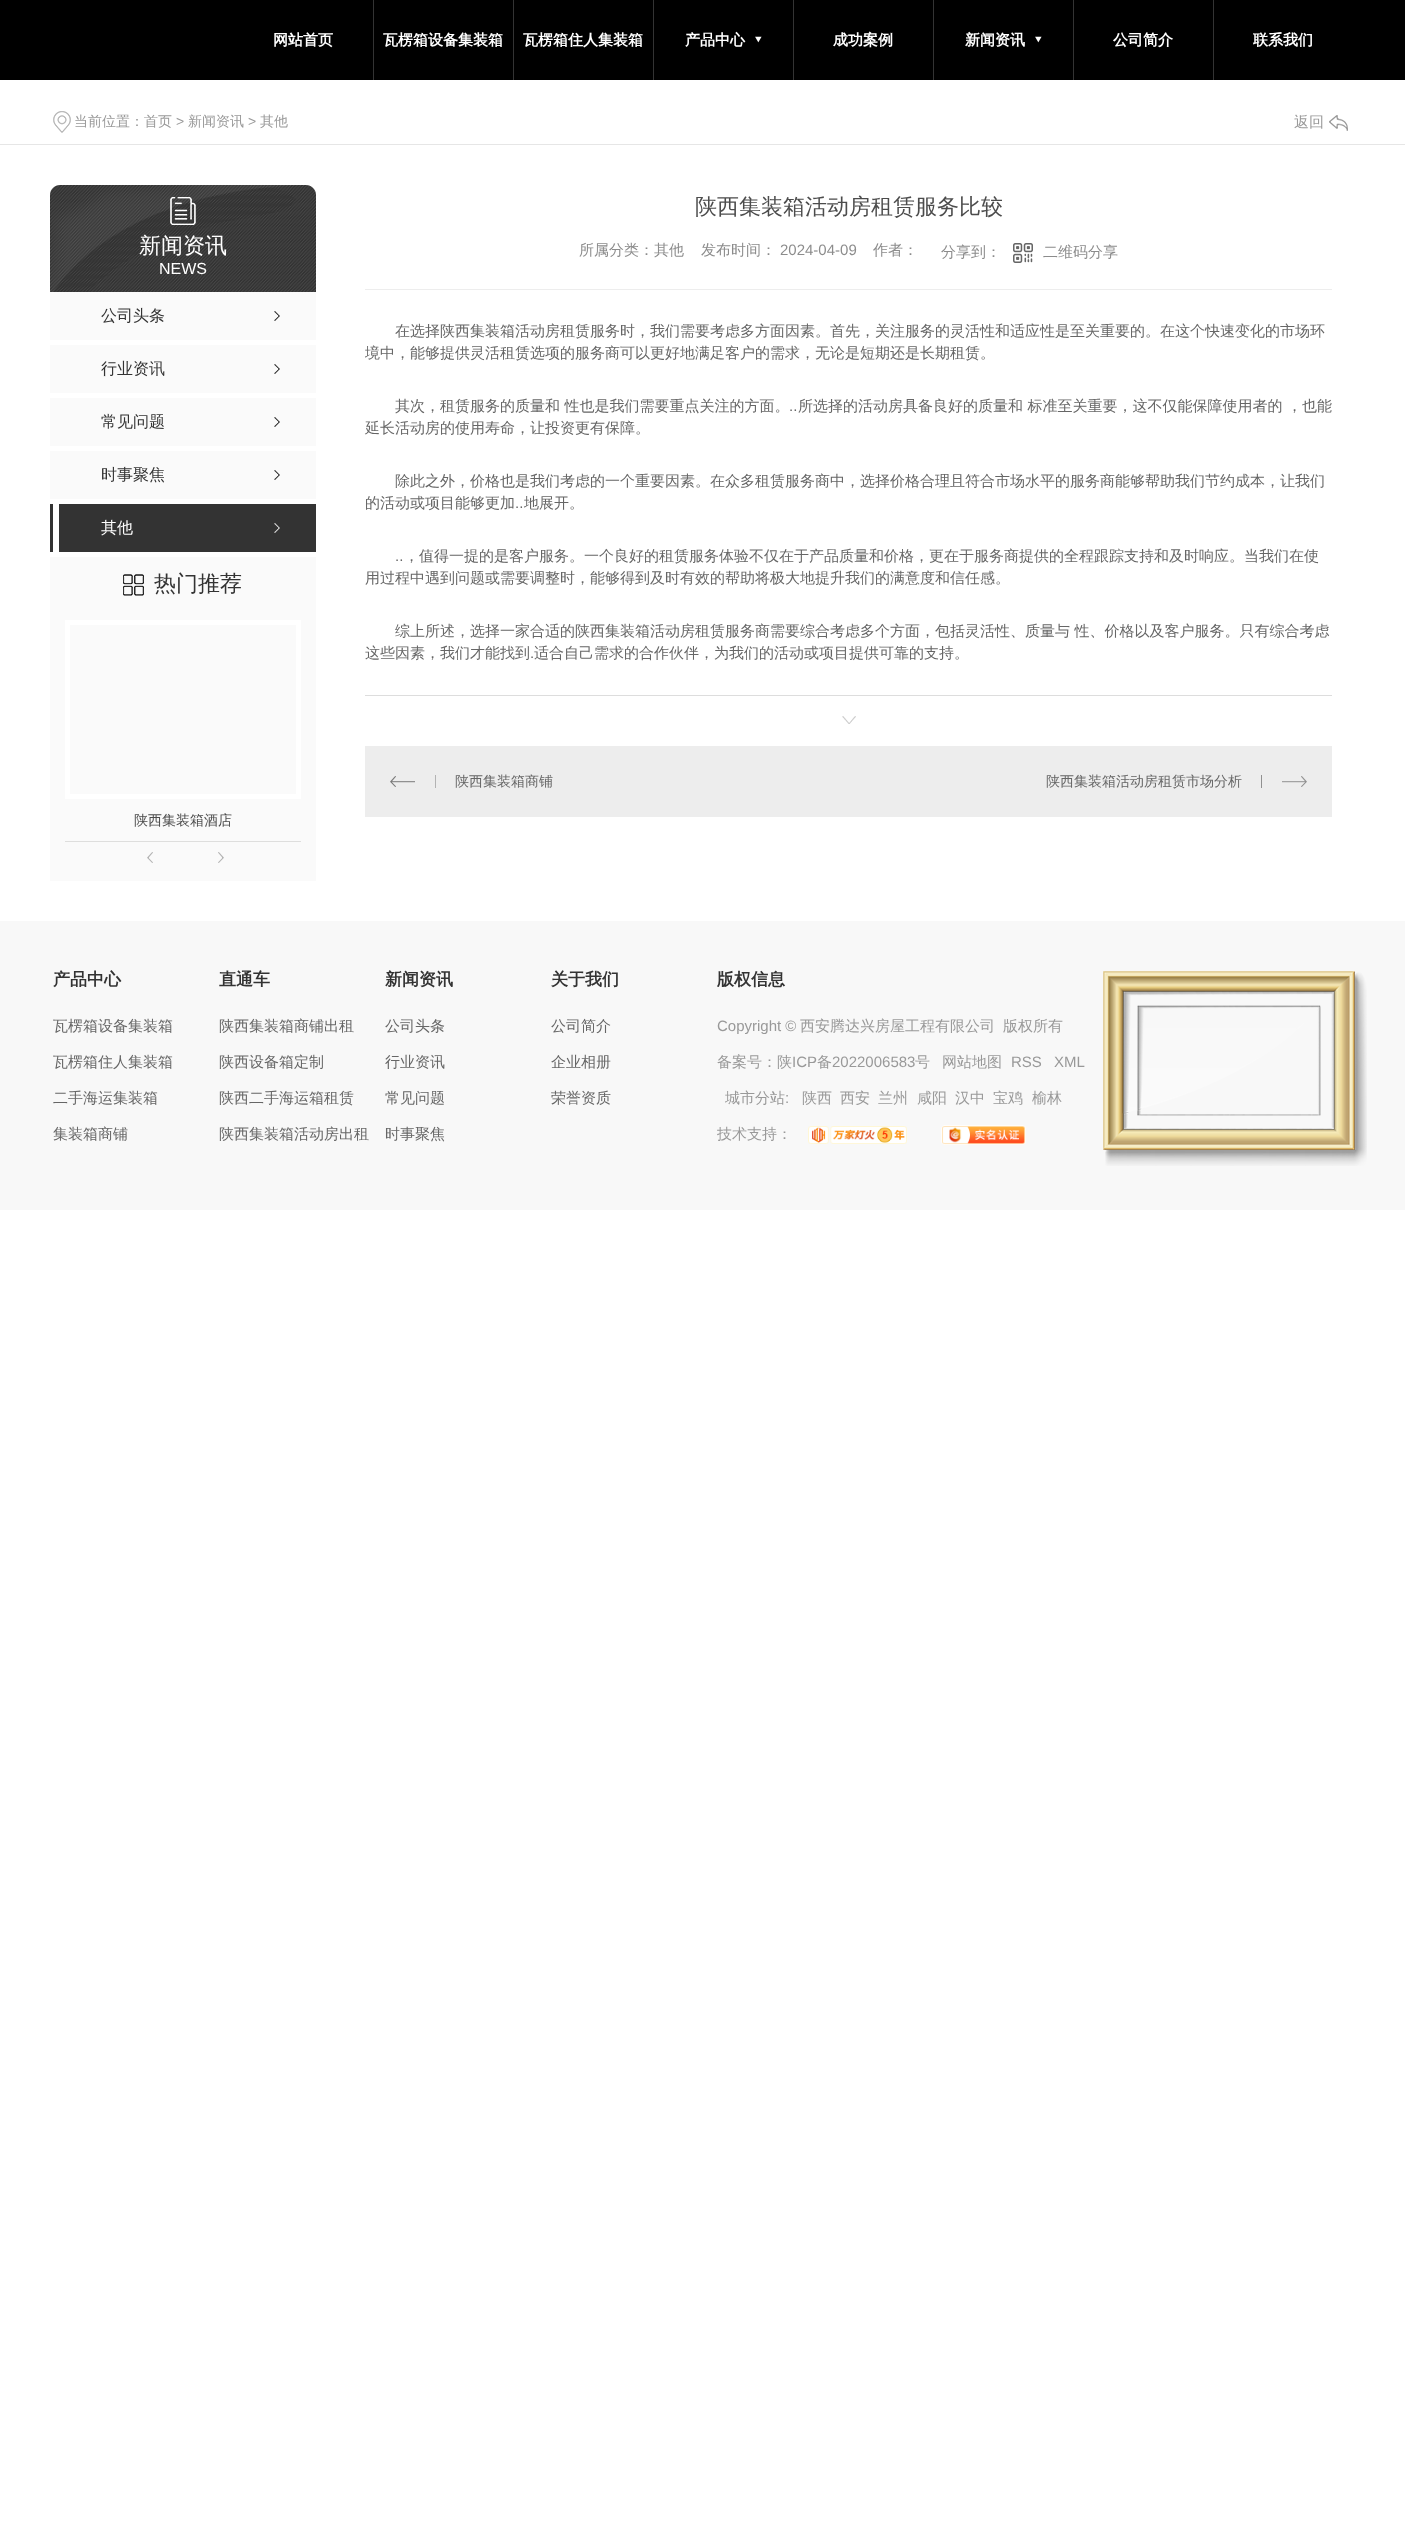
<?xml version="1.0" encoding="UTF-8"?>
<svg xmlns="http://www.w3.org/2000/svg" width="1405" height="2533">
    <rect width="100%" height="100%" fill="#FFFFFF"/>
    <rect x="0" y="0" width="1405" height="80" fill="#000000"/>
    <text x="273" y="45" font-family="WenQuanYi Zen Hei" font-size="15" font-weight="700" fill="#FFFFFF">网站首页</text>
    <rect x="373" y="0" width="1" height="80" fill="#333333"/>
    <text x="383" y="45" font-family="WenQuanYi Zen Hei" font-size="15" font-weight="700" fill="#FFFFFF">瓦楞箱设备集装箱</text>
    <rect x="513" y="0" width="1" height="80" fill="#333333"/>
    <text x="523" y="45" font-family="WenQuanYi Zen Hei" font-size="15" font-weight="700" fill="#FFFFFF">瓦楞箱住人集装箱</text>
    <rect x="653" y="0" width="1" height="80" fill="#333333"/>
    <text x="685" y="45" font-family="WenQuanYi Zen Hei" font-size="15" font-weight="700" fill="#FFFFFF">产品中心</text>
    <image x="755" y="36" width="7" height="7" href="img_01.png"/>
    <rect x="793" y="0" width="1" height="80" fill="#333333"/>
    <text x="833" y="45" font-family="WenQuanYi Zen Hei" font-size="15" font-weight="700" fill="#FFFFFF">成功案例</text>
    <rect x="933" y="0" width="1" height="80" fill="#333333"/>
    <text x="965" y="45" font-family="WenQuanYi Zen Hei" font-size="15" font-weight="700" fill="#FFFFFF">新闻资讯</text>
    <image x="1035" y="36" width="7" height="7" href="img_01.png"/>
    <rect x="1073" y="0" width="1" height="80" fill="#333333"/>
    <text x="1113" y="45" font-family="WenQuanYi Zen Hei" font-size="15" font-weight="700" fill="#FFFFFF">公司简介</text>
    <rect x="1213" y="0" width="1" height="80" fill="#333333"/>
    <text x="1253" y="45" font-family="WenQuanYi Zen Hei" font-size="15" font-weight="700" fill="#FFFFFF">联系我们</text>
    <rect x="0" y="144" width="1405" height="1" fill="#E6E6E6"/>
    <image x="53" y="111" width="18" height="22" href="img_02.png"/>
    <text x="74" y="126" font-family="WenQuanYi Zen Hei" font-size="14" font-weight="500" fill="#999999">当前位置：首页</text>
    <text x="176" y="126" font-family="Liberation Sans" font-size="14" fill="#999999">&gt;</text>
    <text x="188" y="126" font-family="WenQuanYi Zen Hei" font-size="14" font-weight="500" fill="#999999">新闻资讯</text>
    <text x="248" y="126" font-family="Liberation Sans" font-size="14" fill="#999999">&gt;</text>
    <text x="260" y="126" font-family="WenQuanYi Zen Hei" font-size="14" font-weight="500" fill="#999999">其他</text>
    <text x="1294" y="127" font-family="WenQuanYi Zen Hei" font-size="15" font-weight="500" fill="#999999">返回</text>
    <image x="1329" y="115" width="19" height="16" href="img_03.png"/>
    <path d="M 60 185 H 306 C 311.5 185 316 189.5 316 195 V 297 H 50 V 195 C 50 189.5 54.5 185 60 185 Z" fill="#333333"/>
    <image x="50" y="185" width="266" height="107" href="img_04.png"/>
    <image x="170" y="197" width="26" height="28" href="img_05.png"/>
    <text x="139" y="253" font-family="WenQuanYi Zen Hei" font-size="22" font-weight="500" fill="#FFFFFF">新闻资讯</text>
    <text x="159" y="274" font-family="Liberation Sans" font-size="16" fill="#FFFFFF">NEWS</text>
    <rect x="50" y="292" width="266" height="48" fill="#FAFAFA"/>
    <image x="274" y="311" width="6" height="10" href="img_06.png"/>
    <text x="101" y="321" font-family="WenQuanYi Zen Hei" font-size="16" font-weight="500" fill="#333333">公司头条</text>
    <rect x="50" y="345" width="266" height="48" fill="#FAFAFA"/>
    <image x="274" y="364" width="6" height="10" href="img_06.png"/>
    <text x="101" y="374" font-family="WenQuanYi Zen Hei" font-size="16" font-weight="500" fill="#333333">行业资讯</text>
    <rect x="50" y="398" width="266" height="48" fill="#FAFAFA"/>
    <image x="274" y="417" width="6" height="10" href="img_06.png"/>
    <text x="101" y="427" font-family="WenQuanYi Zen Hei" font-size="16" font-weight="500" fill="#333333">常见问题</text>
    <rect x="50" y="451" width="266" height="48" fill="#FAFAFA"/>
    <image x="274" y="470" width="6" height="10" href="img_06.png"/>
    <text x="101" y="480" font-family="WenQuanYi Zen Hei" font-size="16" font-weight="500" fill="#333333">时事聚焦</text>
    <rect x="50" y="504" width="266" height="48" fill="#333333"/>
    <rect x="53" y="504" width="6" height="48" fill="#FFFFFF"/>
    <image x="274" y="523" width="6" height="10" href="img_07.png"/>
    <text x="101" y="533" font-family="WenQuanYi Zen Hei" font-size="16" font-weight="500" fill="#FFFFFF">其他</text>
    <rect x="50" y="557" width="266" height="324" fill="#FAFAFA"/>
    <image x="123" y="574" width="21" height="22" href="img_08.png"/>
    <text x="154" y="591" font-family="WenQuanYi Zen Hei" font-size="22" font-weight="500" fill="#333333">热门推荐</text>
    <rect x="67.5" y="622.5" width="231" height="174" fill="none" stroke="#FFFFFF" stroke-width="5"/>
    <rect x="65" y="841" width="236" height="1" fill="#DEDEDD"/>
    <text x="134" y="825" font-family="WenQuanYi Zen Hei" font-size="14" font-weight="500" fill="#4C4C4C">陕西集装箱酒店</text>
    <image x="147" y="852" width="6" height="11" href="img_09.png"/>
    <image x="218" y="852" width="6" height="11" href="img_10.png"/>
    <text x="695" y="214" font-family="WenQuanYi Zen Hei" font-size="22" font-weight="500" fill="#4C4C4C">陕西集装箱活动房租赁服务比较</text>
    <text x="579" y="255" font-family="WenQuanYi Zen Hei" font-size="15" font-weight="500" fill="#8C8C8C">所属分类：其他</text>
    <text x="701" y="255" font-family="WenQuanYi Zen Hei" font-size="15" font-weight="500" fill="#8C8C8C">发布时间：</text>
    <text x="780" y="255" font-family="Liberation Sans" font-size="15" fill="#8C8C8C">2024-04-09</text>
    <text x="873" y="255" font-family="WenQuanYi Zen Hei" font-size="15" font-weight="500" fill="#8C8C8C">作者：</text>
    <text x="941" y="257" font-family="WenQuanYi Zen Hei" font-size="15" font-weight="500" fill="#8C8C8C">分享到：</text>
    <image x="1013" y="243" width="20" height="20" href="img_11.png"/>
    <text x="1043" y="257" font-family="WenQuanYi Zen Hei" font-size="15" font-weight="500" fill="#8C8C8C">二维码分享</text>
    <rect x="365" y="289" width="967" height="1" fill="#EDEDED"/>
    <rect x="365" y="695" width="967" height="1" fill="#DDDDDD"/>
    <text x="395" y="336" font-family="WenQuanYi Zen Hei" font-size="15" font-weight="500" fill="#666666">在选择陕西集装箱活动房租赁服务时，我们需要考虑多方面因素。首先，关注服务的灵活性和适应性是至关重要的。在这个快速变化的市场环</text>
    <text x="365" y="358" font-family="WenQuanYi Zen Hei" font-size="15" font-weight="500" fill="#666666">境中，能够提供灵活租赁选项的服务商可以更好地满足客户的需求，无论是短期还是长期租赁。</text>
    <text x="395" y="411" font-family="WenQuanYi Zen Hei" font-size="15" font-weight="500" fill="#666666">其次，租赁服务的质量和 性也是我们需要重点关注的方面。</text>
    <text x="789" y="411" font-family="Liberation Sans" font-size="15" fill="#666666">..</text>
    <text x="798" y="411" font-family="WenQuanYi Zen Hei" font-size="15" font-weight="500" fill="#666666">所选择的活动房具备良好的质量和 标准至关重要，这不仅能保障使用者的 ，也能</text>
    <text x="365" y="433" font-family="WenQuanYi Zen Hei" font-size="15" font-weight="500" fill="#666666">延长活动房的使用寿命，让投资更有保障。</text>
    <text x="395" y="486" font-family="WenQuanYi Zen Hei" font-size="15" font-weight="500" fill="#666666">除此之外，价格也是我们考虑的一个重要因素。在众多租赁服务商中，选择价格合理且符合市场水平的服务商能够帮助我们节约成本，让我们</text>
    <text x="365" y="508" font-family="WenQuanYi Zen Hei" font-size="15" font-weight="500" fill="#666666">的活动或项目能够更加</text>
    <text x="515" y="508" font-family="Liberation Sans" font-size="15" fill="#666666">..</text>
    <text x="524" y="508" font-family="WenQuanYi Zen Hei" font-size="15" font-weight="500" fill="#666666">地展开。</text>
    <text x="395" y="561" font-family="Liberation Sans" font-size="15" fill="#666666">..</text>
    <text x="404" y="561" font-family="WenQuanYi Zen Hei" font-size="15" font-weight="500" fill="#666666">，值得一提的是客户服务。一个良好的租赁服务体验不仅在于产品质量和价格，更在于服务商提供的全程跟踪支持和及时响应。当我们在使</text>
    <text x="365" y="583" font-family="WenQuanYi Zen Hei" font-size="15" font-weight="500" fill="#666666">用过程中遇到问题或需要调整时，能够得到及时有效的帮助将极大地提升我们的满意度和信任感。</text>
    <text x="395" y="636" font-family="WenQuanYi Zen Hei" font-size="15" font-weight="500" fill="#666666">综上所述，选择一家合适的陕西集装箱活动房租赁服务商需要综合考虑多个方面，包括灵活性、质量与 性、价格以及客户服务。只有综合考虑</text>
    <text x="365" y="658" font-family="WenQuanYi Zen Hei" font-size="15" font-weight="500" fill="#666666">这些因素，我们才能找到</text>
    <text x="530" y="658" font-family="Liberation Sans" font-size="15" fill="#666666">.</text>
    <text x="534" y="658" font-family="WenQuanYi Zen Hei" font-size="15" font-weight="500" fill="#666666">适合自己需求的合作伙伴，为我们的活动或项目提供可靠的支持。</text>
    <image x="842" y="716" width="14" height="8" href="img_12.png"/>
    <rect x="365" y="746" width="967" height="71" fill="#EDEDED"/>
    <image x="390" y="775" width="46" height="13" href="img_13.png"/>
    <text x="455" y="786" font-family="WenQuanYi Zen Hei" font-size="14" font-weight="500" fill="#666666">陕西集装箱商铺</text>
    <image x="1261" y="775" width="46" height="13" href="img_14.png"/>
    <text x="1046" y="786" font-family="WenQuanYi Zen Hei" font-size="14" font-weight="500" fill="#666666">陕西集装箱活动房租赁市场分析</text>
    <rect x="0" y="921" width="1405" height="289" fill="#F8F8F8"/>
    <text x="53" y="985" font-family="WenQuanYi Zen Hei" font-size="17" font-weight="700" fill="#333333">产品中心</text>
    <text x="53" y="1031" font-family="WenQuanYi Zen Hei" font-size="15" font-weight="500" fill="#666666">瓦楞箱设备集装箱</text>
    <text x="53" y="1067" font-family="WenQuanYi Zen Hei" font-size="15" font-weight="500" fill="#666666">瓦楞箱住人集装箱</text>
    <text x="53" y="1103" font-family="WenQuanYi Zen Hei" font-size="15" font-weight="500" fill="#666666">二手海运集装箱</text>
    <text x="53" y="1139" font-family="WenQuanYi Zen Hei" font-size="15" font-weight="500" fill="#666666">集装箱商铺</text>
    <text x="219" y="985" font-family="WenQuanYi Zen Hei" font-size="17" font-weight="700" fill="#333333">直通车</text>
    <text x="219" y="1031" font-family="WenQuanYi Zen Hei" font-size="15" font-weight="500" fill="#666666">陕西集装箱商铺出租</text>
    <text x="219" y="1067" font-family="WenQuanYi Zen Hei" font-size="15" font-weight="500" fill="#666666">陕西设备箱定制</text>
    <text x="219" y="1103" font-family="WenQuanYi Zen Hei" font-size="15" font-weight="500" fill="#666666">陕西二手海运箱租赁</text>
    <text x="219" y="1139" font-family="WenQuanYi Zen Hei" font-size="15" font-weight="500" fill="#666666">陕西集装箱活动房出租</text>
    <text x="385" y="985" font-family="WenQuanYi Zen Hei" font-size="17" font-weight="700" fill="#333333">新闻资讯</text>
    <text x="385" y="1031" font-family="WenQuanYi Zen Hei" font-size="15" font-weight="500" fill="#666666">公司头条</text>
    <text x="385" y="1067" font-family="WenQuanYi Zen Hei" font-size="15" font-weight="500" fill="#666666">行业资讯</text>
    <text x="385" y="1103" font-family="WenQuanYi Zen Hei" font-size="15" font-weight="500" fill="#666666">常见问题</text>
    <text x="385" y="1139" font-family="WenQuanYi Zen Hei" font-size="15" font-weight="500" fill="#666666">时事聚焦</text>
    <text x="551" y="985" font-family="WenQuanYi Zen Hei" font-size="17" font-weight="700" fill="#333333">关于我们</text>
    <text x="551" y="1031" font-family="WenQuanYi Zen Hei" font-size="15" font-weight="500" fill="#666666">公司简介</text>
    <text x="551" y="1067" font-family="WenQuanYi Zen Hei" font-size="15" font-weight="500" fill="#666666">企业相册</text>
    <text x="551" y="1103" font-family="WenQuanYi Zen Hei" font-size="15" font-weight="500" fill="#666666">荣誉资质</text>
    <text x="717" y="985" font-family="WenQuanYi Zen Hei" font-size="17" font-weight="700" fill="#333333">版权信息</text>
    <text x="717" y="1031" font-family="Liberation Sans" font-size="15" fill="#999999">Copyright ©</text>
    <text x="800" y="1031" font-family="WenQuanYi Zen Hei" font-size="15" font-weight="500" fill="#999999">西安腾达兴房屋工程有限公司</text>
    <text x="1003" y="1031" font-family="WenQuanYi Zen Hei" font-size="15" font-weight="500" fill="#999999">版权所有</text>
    <text x="717" y="1067" font-family="WenQuanYi Zen Hei" font-size="15" font-weight="500" fill="#999999">备案号：陕</text>
    <text x="792" y="1067" font-family="Liberation Sans" font-size="15" fill="#999999">ICP</text>
    <text x="817" y="1067" font-family="WenQuanYi Zen Hei" font-size="15" font-weight="500" fill="#999999">备</text>
    <text x="832" y="1067" font-family="Liberation Sans" font-size="15" fill="#999999">2022006583</text>
    <text x="915" y="1067" font-family="WenQuanYi Zen Hei" font-size="15" font-weight="500" fill="#999999">号</text>
    <text x="942" y="1067" font-family="WenQuanYi Zen Hei" font-size="15" font-weight="500" fill="#999999">网站地图</text>
    <text x="1011" y="1067" font-family="Liberation Sans" font-size="15" fill="#999999">RSS</text>
    <text x="1054" y="1067" font-family="Liberation Sans" font-size="15" fill="#999999">XML</text>
    <text x="725" y="1103" font-family="WenQuanYi Zen Hei" font-size="15" font-weight="500" fill="#999999">城市分站</text>
    <text x="785" y="1103" font-family="Liberation Sans" font-size="15" fill="#999999">:</text>
    <text x="802" y="1103" font-family="WenQuanYi Zen Hei" font-size="15" font-weight="500" fill="#999999">陕西</text>
    <text x="840" y="1103" font-family="WenQuanYi Zen Hei" font-size="15" font-weight="500" fill="#999999">西安</text>
    <text x="878" y="1103" font-family="WenQuanYi Zen Hei" font-size="15" font-weight="500" fill="#999999">兰州</text>
    <text x="917" y="1103" font-family="WenQuanYi Zen Hei" font-size="15" font-weight="500" fill="#999999">咸阳</text>
    <text x="955" y="1103" font-family="WenQuanYi Zen Hei" font-size="15" font-weight="500" fill="#999999">汉中</text>
    <text x="993" y="1103" font-family="WenQuanYi Zen Hei" font-size="15" font-weight="500" fill="#999999">宝鸡</text>
    <text x="1032" y="1103" font-family="WenQuanYi Zen Hei" font-size="15" font-weight="500" fill="#999999">榆林</text>
    <text x="717" y="1139" font-family="WenQuanYi Zen Hei" font-size="15" font-weight="500" fill="#999999">技术支持：</text>
    <image x="808" y="1126" width="99" height="18" href="img_15.png"/>
    <image x="941" y="1125" width="85" height="20" href="img_16.png"/>
    <image x="1103" y="971" width="264" height="195" href="img_17.png"/>
</svg>
